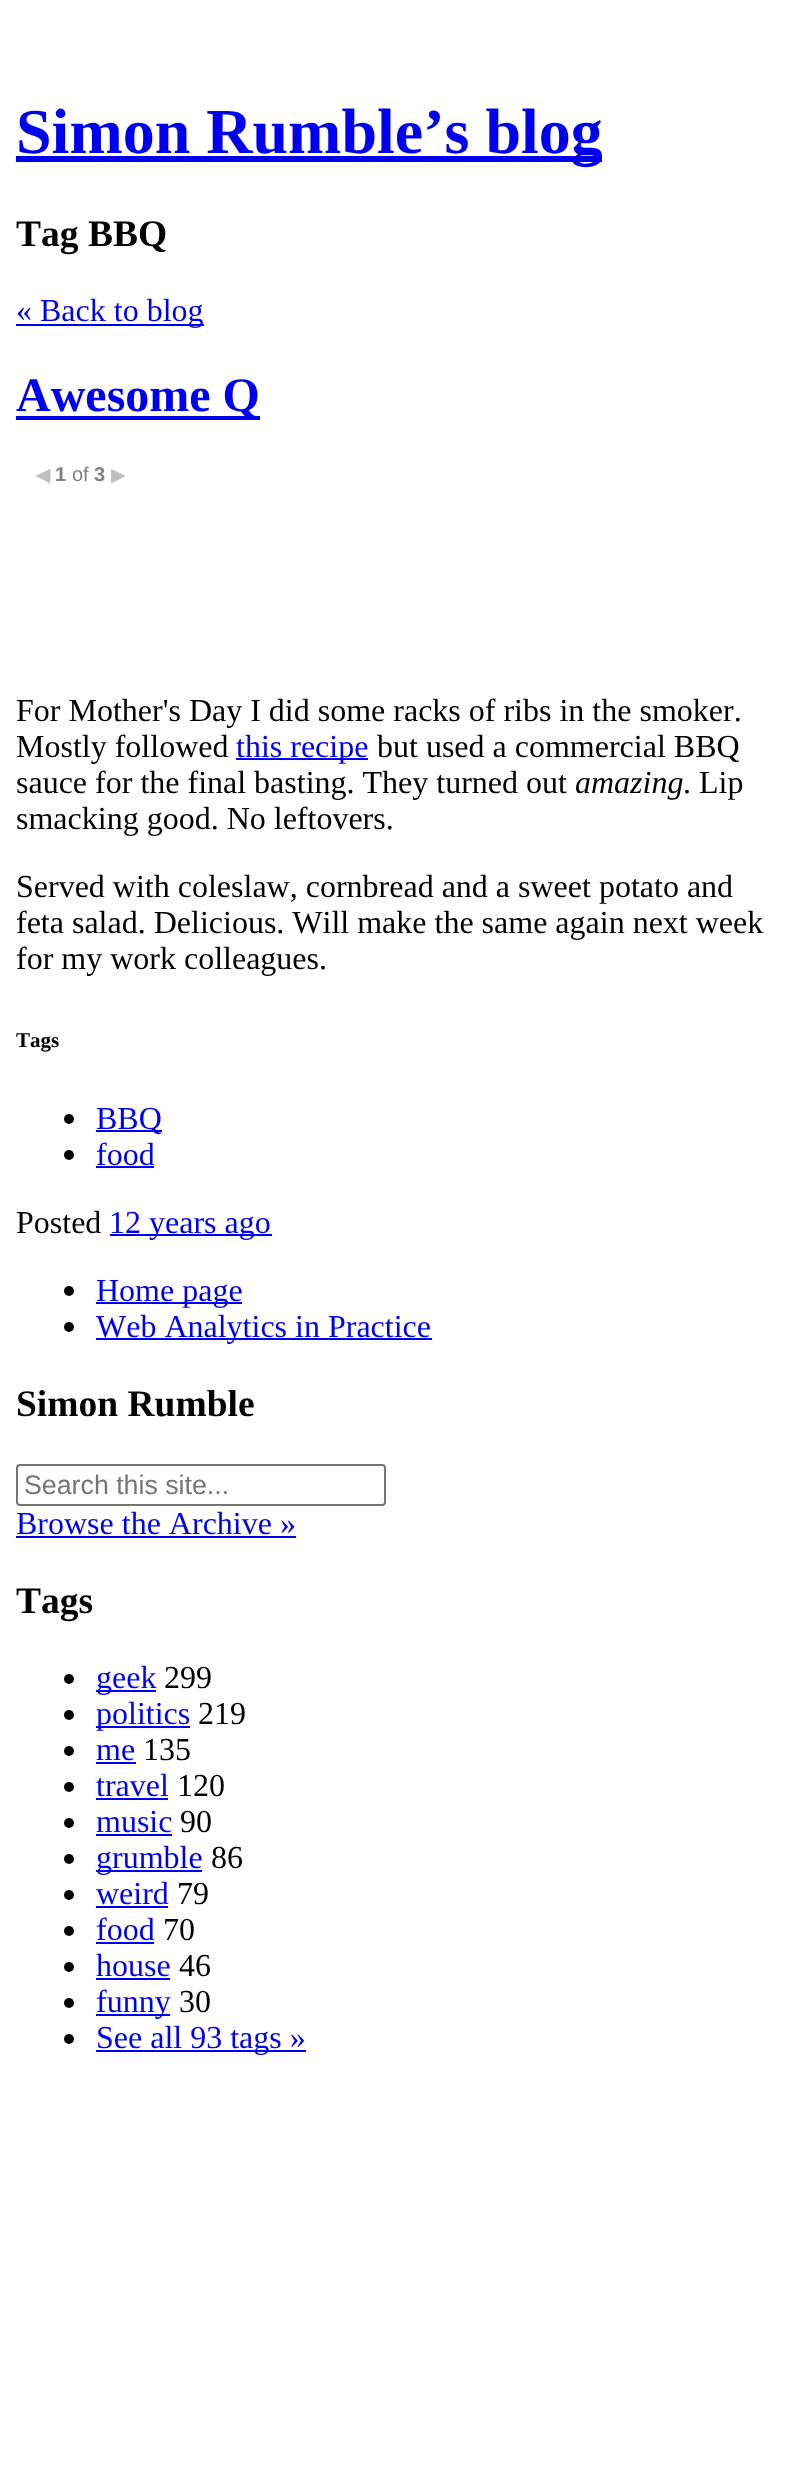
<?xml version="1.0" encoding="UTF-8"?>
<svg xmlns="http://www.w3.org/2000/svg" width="790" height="2477">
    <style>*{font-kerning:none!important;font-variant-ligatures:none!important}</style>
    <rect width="100%" height="100%" fill="#FFFFFF"/>
    <rect x="16" y="156" width="586" height="6" fill="#0000EE"/>
    <text x="16" y="153" font-family="Liberation Serif" font-size="64" font-weight="700" fill="#0000EE">Simon Rumble’s blog</text>
    <text x="16" y="246" font-family="Liberation Serif" font-size="37.5" font-weight="700" fill="#000000">Tag BBQ</text>
    <rect x="16" y="324" width="188" height="2" fill="#0000EE"/>
    <text x="16" y="321" font-family="Liberation Serif" font-size="32" fill="#0000EE">« Back to blog</text>
    <rect x="16" y="416" width="244" height="4" fill="#0000EE"/>
    <text x="16" y="411" font-family="Liberation Serif" font-size="48" font-weight="700" fill="#0000EE">Awesome Q</text>
    <text x="36" y="481" font-family="DejaVu Sans" font-size="18" font-weight="700" fill="#BFBFBF">◀</text>
    <text x="55" y="481" font-family="Liberation Sans" font-size="20" font-weight="700" fill="#808080">1</text>
    <text x="72" y="481" font-family="Liberation Sans" font-size="20" fill="#808080">of</text>
    <text x="94" y="481" font-family="Liberation Sans" font-size="20" font-weight="700" fill="#808080">3</text>
    <text x="111" y="481" font-family="DejaVu Sans" font-size="18" font-weight="700" fill="#BFBFBF">▶</text>
    <text font-family="Liberation Serif" font-size="32" fill="#000000">
        <tspan x="16" y="721">For Mother's Day I did some racks of ribs in the smoker.</tspan>
        <tspan x="16" y="757">Mostly followed</tspan>
    </text>
    <rect x="236" y="758" width="132" height="2" fill="#0000EE"/>
    <text x="236" y="757" font-family="Liberation Serif" font-size="32" fill="#0000EE">this recipe</text>
    <text x="377" y="757" font-family="Liberation Serif" font-size="32" fill="#000000">but used a commercial BBQ</text>
    <text x="16" y="793" font-family="Liberation Serif" font-size="32" fill="#000000">sauce for the final basting. They turned out</text>
    <text x="575" y="793" font-family="Liberation Serif" font-size="32" font-style="italic" fill="#000000">amazing</text>
    <text x="683" y="793" font-family="Liberation Serif" font-size="32" fill="#000000">. Lip</text>
    <text x="16" y="829" font-family="Liberation Serif" font-size="32" fill="#000000">smacking good. No leftovers.</text>
    <text font-family="Liberation Serif" font-size="32" fill="#000000">
        <tspan x="16" y="897">Served with coleslaw, cornbread and a sweet potato and</tspan>
        <tspan x="16" y="933">feta salad. Delicious. Will make the same again next week</tspan>
        <tspan x="16" y="969">for my work colleagues.</tspan>
    </text>
    <text x="16" y="1047" font-family="Liberation Serif" font-size="21" font-weight="700" fill="#000000">Tags</text>
    <circle cx="69" cy="1119" r="5" fill="#000000"/>
    <rect x="96" y="1130" width="66" height="2" fill="#0000EE"/>
    <text x="96" y="1129" font-family="Liberation Serif" font-size="32" fill="#0000EE">BBQ</text>
    <circle cx="69" cy="1155" r="5" fill="#000000"/>
    <text x="96" y="1165" font-family="Liberation Serif" font-size="32" fill="#0000EE">food</text>
    <rect x="96" y="1166" width="58" height="2" fill="#0000EE"/>
    <text x="16" y="1233" font-family="Liberation Serif" font-size="32" fill="#000000">Posted</text>
    <rect x="110" y="1234" width="162" height="2" fill="#0000EE"/>
    <text x="109" y="1233" font-family="Liberation Serif" font-size="32" fill="#0000EE">12 years ago</text>
    <circle cx="69" cy="1291" r="5" fill="#000000"/>
    <rect x="96" y="1302" width="146" height="2" fill="#0000EE"/>
    <text x="96" y="1301" font-family="Liberation Serif" font-size="32" fill="#0000EE">Home page</text>
    <circle cx="69" cy="1327" r="5" fill="#000000"/>
    <rect x="96" y="1338" width="336" height="2" fill="#0000EE"/>
    <text x="96" y="1337" font-family="Liberation Serif" font-size="32" fill="#0000EE">Web Analytics in Practice</text>
    <text x="16" y="1416" font-family="Liberation Serif" font-size="37.5" font-weight="700" fill="#000000">Simon Rumble</text>
    <rect x="17" y="1465" width="368" height="40" rx="3" fill="none" stroke="#767676" stroke-width="2"/>
    <text x="24" y="1494" font-family="Liberation Sans" font-size="26.75" fill="#757575">Search this site...</text>
    <text x="16" y="1534" font-family="Liberation Serif" font-size="32" fill="#0000EE">Browse the Archive »</text>
    <rect x="16" y="1536" width="280" height="2" fill="#0000EE"/>
    <text x="16" y="1613" font-family="Liberation Serif" font-size="37.5" font-weight="700" fill="#000000">Tags</text>
    <circle cx="69" cy="1679" r="5" fill="#000000"/>
    <rect x="96" y="1690" width="60" height="2" fill="#0000EE"/>
    <text x="96" y="1688" font-family="Liberation Serif" font-size="32" fill="#0000EE">geek</text>
    <text x="164" y="1688" font-family="Liberation Serif" font-size="32" fill="#000000">299</text>
    <circle cx="69" cy="1715" r="5" fill="#000000"/>
    <rect x="96" y="1726" width="94" height="2" fill="#0000EE"/>
    <text x="96" y="1724" font-family="Liberation Serif" font-size="32" fill="#0000EE">politics</text>
    <text x="198" y="1724" font-family="Liberation Serif" font-size="32" fill="#000000">219</text>
    <circle cx="69" cy="1751" r="5" fill="#000000"/>
    <text x="96" y="1760" font-family="Liberation Serif" font-size="32" fill="#0000EE">me</text>
    <rect x="96" y="1762" width="40" height="2" fill="#0000EE"/>
    <text x="143" y="1760" font-family="Liberation Serif" font-size="32" fill="#000000">135</text>
    <circle cx="69" cy="1787" r="5" fill="#000000"/>
    <text x="96" y="1796" font-family="Liberation Serif" font-size="32" fill="#0000EE">travel</text>
    <rect x="96" y="1798" width="72" height="2" fill="#0000EE"/>
    <text x="177" y="1796" font-family="Liberation Serif" font-size="32" fill="#000000">120</text>
    <circle cx="69" cy="1823" r="5" fill="#000000"/>
    <text x="96" y="1832" font-family="Liberation Serif" font-size="32" fill="#0000EE">music</text>
    <rect x="96" y="1834" width="76" height="2" fill="#0000EE"/>
    <text x="180" y="1832" font-family="Liberation Serif" font-size="32" fill="#000000">90</text>
    <circle cx="69" cy="1859" r="5" fill="#000000"/>
    <rect x="96" y="1870" width="106" height="2" fill="#0000EE"/>
    <text x="96" y="1868" font-family="Liberation Serif" font-size="32" fill="#0000EE">grumble</text>
    <text x="211" y="1868" font-family="Liberation Serif" font-size="32" fill="#000000">86</text>
    <circle cx="69" cy="1895" r="5" fill="#000000"/>
    <text x="96" y="1904" font-family="Liberation Serif" font-size="32" fill="#0000EE">weird</text>
    <rect x="96" y="1906" width="72" height="2" fill="#0000EE"/>
    <text x="177" y="1904" font-family="Liberation Serif" font-size="32" fill="#000000">79</text>
    <circle cx="69" cy="1931" r="5" fill="#000000"/>
    <text x="96" y="1940" font-family="Liberation Serif" font-size="32" fill="#0000EE">food</text>
    <rect x="96" y="1942" width="58" height="2" fill="#0000EE"/>
    <text x="163" y="1940" font-family="Liberation Serif" font-size="32" fill="#000000">70</text>
    <circle cx="69" cy="1967" r="5" fill="#000000"/>
    <text x="96" y="1976" font-family="Liberation Serif" font-size="32" fill="#0000EE">house</text>
    <rect x="96" y="1978" width="74" height="2" fill="#0000EE"/>
    <text x="179" y="1976" font-family="Liberation Serif" font-size="32" fill="#000000">46</text>
    <circle cx="69" cy="2003" r="5" fill="#000000"/>
    <rect x="96" y="2014" width="74" height="2" fill="#0000EE"/>
    <text x="96" y="2012" font-family="Liberation Serif" font-size="32" fill="#0000EE">funny</text>
    <text x="179" y="2012" font-family="Liberation Serif" font-size="32" fill="#000000">30</text>
    <circle cx="69" cy="2039" r="5" fill="#000000"/>
    <rect x="96" y="2050" width="210" height="2" fill="#0000EE"/>
    <text x="96" y="2048" font-family="Liberation Serif" font-size="32" fill="#0000EE">See all 93 tags »</text>
</svg>
